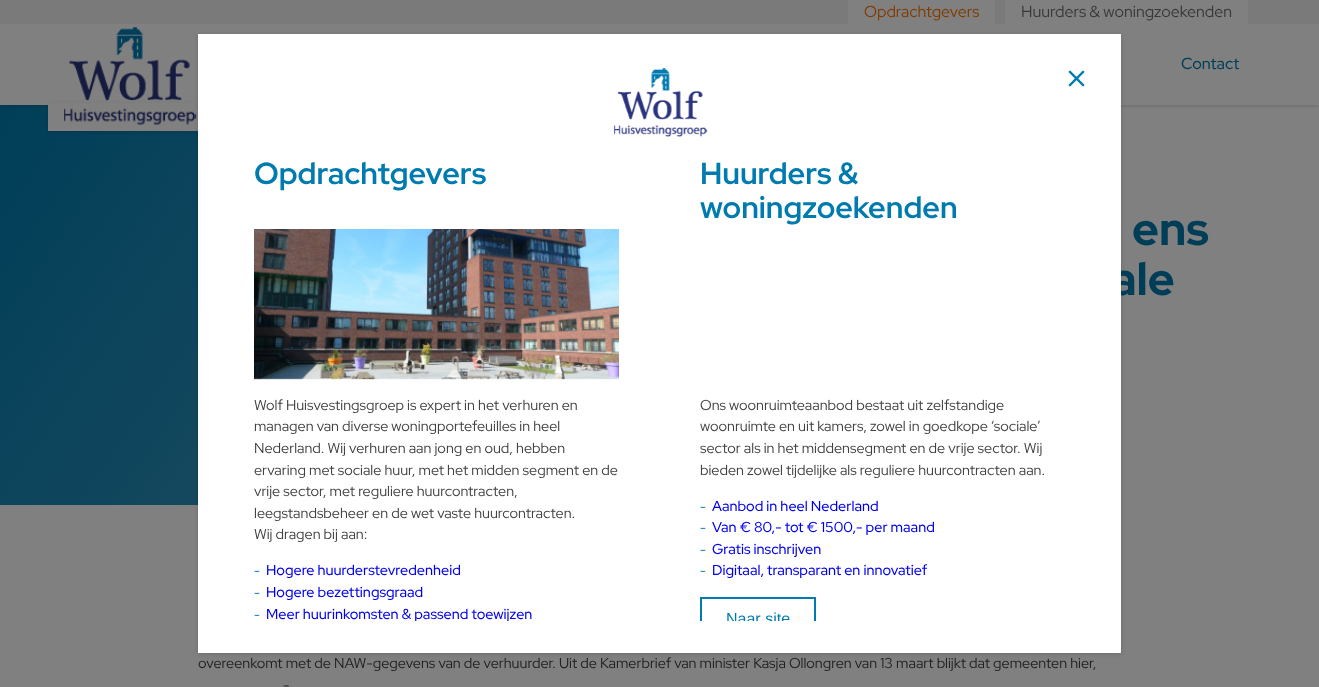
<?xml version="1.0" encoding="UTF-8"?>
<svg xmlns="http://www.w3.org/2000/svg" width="1319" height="687">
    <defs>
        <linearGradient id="g1" gradientUnits="userSpaceOnUse" x1="123" y1="-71" x2="1196" y2="681"><stop offset="0" stop-color="#003E58"/><stop offset="1" stop-color="#44616D"/></linearGradient>
        <clipPath id="clip1"><rect x="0" y="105" width="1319" height="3"/></clipPath>
        <filter id="blur1" x="-50%" y="-200%" width="200%" height="500%"><feGaussianBlur stdDeviation="2"/></filter>
        <clipPath id="clip2"><rect x="254" y="157" width="811" height="464"/></clipPath>
    </defs>
    <rect width="100%" height="100%" fill="#808080"/>
    <rect x="0" y="105" width="198" height="400" fill="url(#g1)"/>
    <g clip-path="url(#clip1)">
        <rect x="0" y="1" width="1319" height="105" fill="#000000" fill-opacity="0.16" filter="url(#blur1)"/>
    </g>
    <rect x="0" y="0" width="1319" height="24" fill="#7A7A7A"/>
    <rect x="848" y="0" width="147" height="24" fill="#808080"/>
    <text x="864" y="17" font-family="Red Hat Display" font-size="16" fill="#7E3C01">Opdrachtgevers</text>
    <rect x="1005" y="0" width="243" height="24" fill="#808080"/>
    <text x="1021" y="17" font-family="Red Hat Display" font-size="16" fill="#383838">Huurders &amp; woningzoekenden</text>
    <rect x="48" y="105" width="161" height="27" fill="#000000" fill-opacity="0.16" filter="url(#blur1)"/>
    <rect x="48" y="103" width="161" height="28" fill="#808080"/>
    <image x="64" y="27" width="133" height="98" href="img_01.png"/>
    <text x="1181" y="69" font-family="Red Hat Display" font-size="16" font-weight="500" fill="#003E58">Contact</text>
    <rect x="198" y="35" width="923" height="619" fill="#000000" fill-opacity="0.16" filter="url(#blur1)"/>
    <text x="1111" y="295" font-family="Red Hat Display" font-size="46" font-weight="800" fill="#003E58">ale</text>
    <rect x="198" y="34" width="923" height="619" fill="#FFFFFF"/>
    <image x="614" y="68" width="94" height="69" href="img_02.png"/>
    <image x="1068" y="70" width="17" height="17" href="img_03.png"/>
    <text x="254" y="184" font-family="Red Hat Display" font-size="30.5" font-weight="700" fill="#007BB0">Opdrachtgevers</text>
    <image x="254" y="229" width="365" height="151" href="img_04.png"/>
    <text font-family="Red Hat Display" font-size="14.4" fill="#404040">
        <tspan x="254" y="410">Wolf Huisvestingsgroep is expert in het verhuren en</tspan>
        <tspan x="254" y="431">managen van diverse woningportefeuilles in heel</tspan>
        <tspan x="254" y="453">Nederland. Wij verhuren aan jong en oud, hebben</tspan>
        <tspan x="254" y="475">ervaring met sociale huur, met het midden segment en de</tspan>
        <tspan x="254" y="496">vrije sector, met reguliere huurcontracten,</tspan>
        <tspan x="254" y="518">leegstandsbeheer en de wet vaste huurcontracten.</tspan>
        <tspan x="254" y="539">Wij dragen bij aan:</tspan>
    </text>
    <text x="254" y="575" font-family="Red Hat Display" font-size="13" font-weight="500" fill="#007BB0">-</text>
    <text x="266" y="575" font-family="Red Hat Display" font-size="14.4" font-weight="500" fill="#0000EE">Hogere huurderstevredenheid</text>
    <text x="254" y="597" font-family="Red Hat Display" font-size="13" font-weight="500" fill="#007BB0">-</text>
    <text x="266" y="597" font-family="Red Hat Display" font-size="14.4" font-weight="500" fill="#0000EE">Hogere bezettingsgraad</text>
    <text x="254" y="619" font-family="Red Hat Display" font-size="13" font-weight="500" fill="#007BB0">-</text>
    <g clip-path="url(#clip2)">
        <text x="266" y="619" font-family="Red Hat Display" font-size="14.4" font-weight="500" fill="#0000EE">Meer huurinkomsten &amp; passend toewijzen</text>
    </g>
    <text font-family="Red Hat Display" font-size="30.5" font-weight="700" fill="#007BB0">
        <tspan x="700" y="184">Huurders &amp;</tspan>
        <tspan x="700" y="218">woningzoekenden</tspan>
    </text>
    <text font-family="Red Hat Display" font-size="14.4" fill="#404040">
        <tspan x="700" y="410">Ons woonruimteaanbod bestaat uit zelfstandige</tspan>
        <tspan x="700" y="431">woonruimte en uit kamers, zowel in goedkope ‘sociale’</tspan>
        <tspan x="700" y="453">sector als in het middensegment en de vrije sector. Wij</tspan>
        <tspan x="700" y="475">bieden zowel tijdelijke als reguliere huurcontracten aan.</tspan>
    </text>
    <text x="700" y="511" font-family="Red Hat Display" font-size="13" font-weight="500" fill="#007BB0">-</text>
    <text x="712" y="511" font-family="Red Hat Display" font-size="14.4" font-weight="500" fill="#0000EE">Aanbod in heel Nederland</text>
    <text x="700" y="532" font-family="Red Hat Display" font-size="13" font-weight="500" fill="#007BB0">-</text>
    <text x="712" y="532" font-family="Red Hat Display" font-size="14.4" font-weight="500" fill="#0000EE">Van € 80,- tot € 1500,- per maand</text>
    <text x="700" y="554" font-family="Red Hat Display" font-size="13" font-weight="500" fill="#007BB0">-</text>
    <text x="712" y="554" font-family="Red Hat Display" font-size="14.4" font-weight="500" fill="#0000EE">Gratis inschrijven</text>
    <text x="700" y="575" font-family="Red Hat Display" font-size="13" font-weight="500" fill="#007BB0">-</text>
    <text x="712" y="575" font-family="Red Hat Display" font-size="14.4" font-weight="500" fill="#0000EE">Digitaal, transparant en innovatief</text>
    <g clip-path="url(#clip2)">
        <rect x="701" y="598" width="114" height="42" fill="none" stroke="#007BB0" stroke-width="2"/>
        <text x="726" y="624" font-family="Liberation Sans" font-size="16" fill="#007BB0">Naar site</text>
    </g>
    <text x="1132" y="245" font-family="Red Hat Display" font-size="46" font-weight="800" fill="#003E58">ens</text>
    <text x="198" y="668" font-family="Red Hat Display" font-size="14.4" fill="#202020">overeenkomt met de NAW-gegevens van de verhuurder. Uit de Kamerbrief van minister Kasja Ollongren van 13 maart blijkt dat gemeenten hier,</text>
    <text x="283" y="690" font-family="Red Hat Display" font-size="14.4" fill="#202020">-</text>
</svg>
